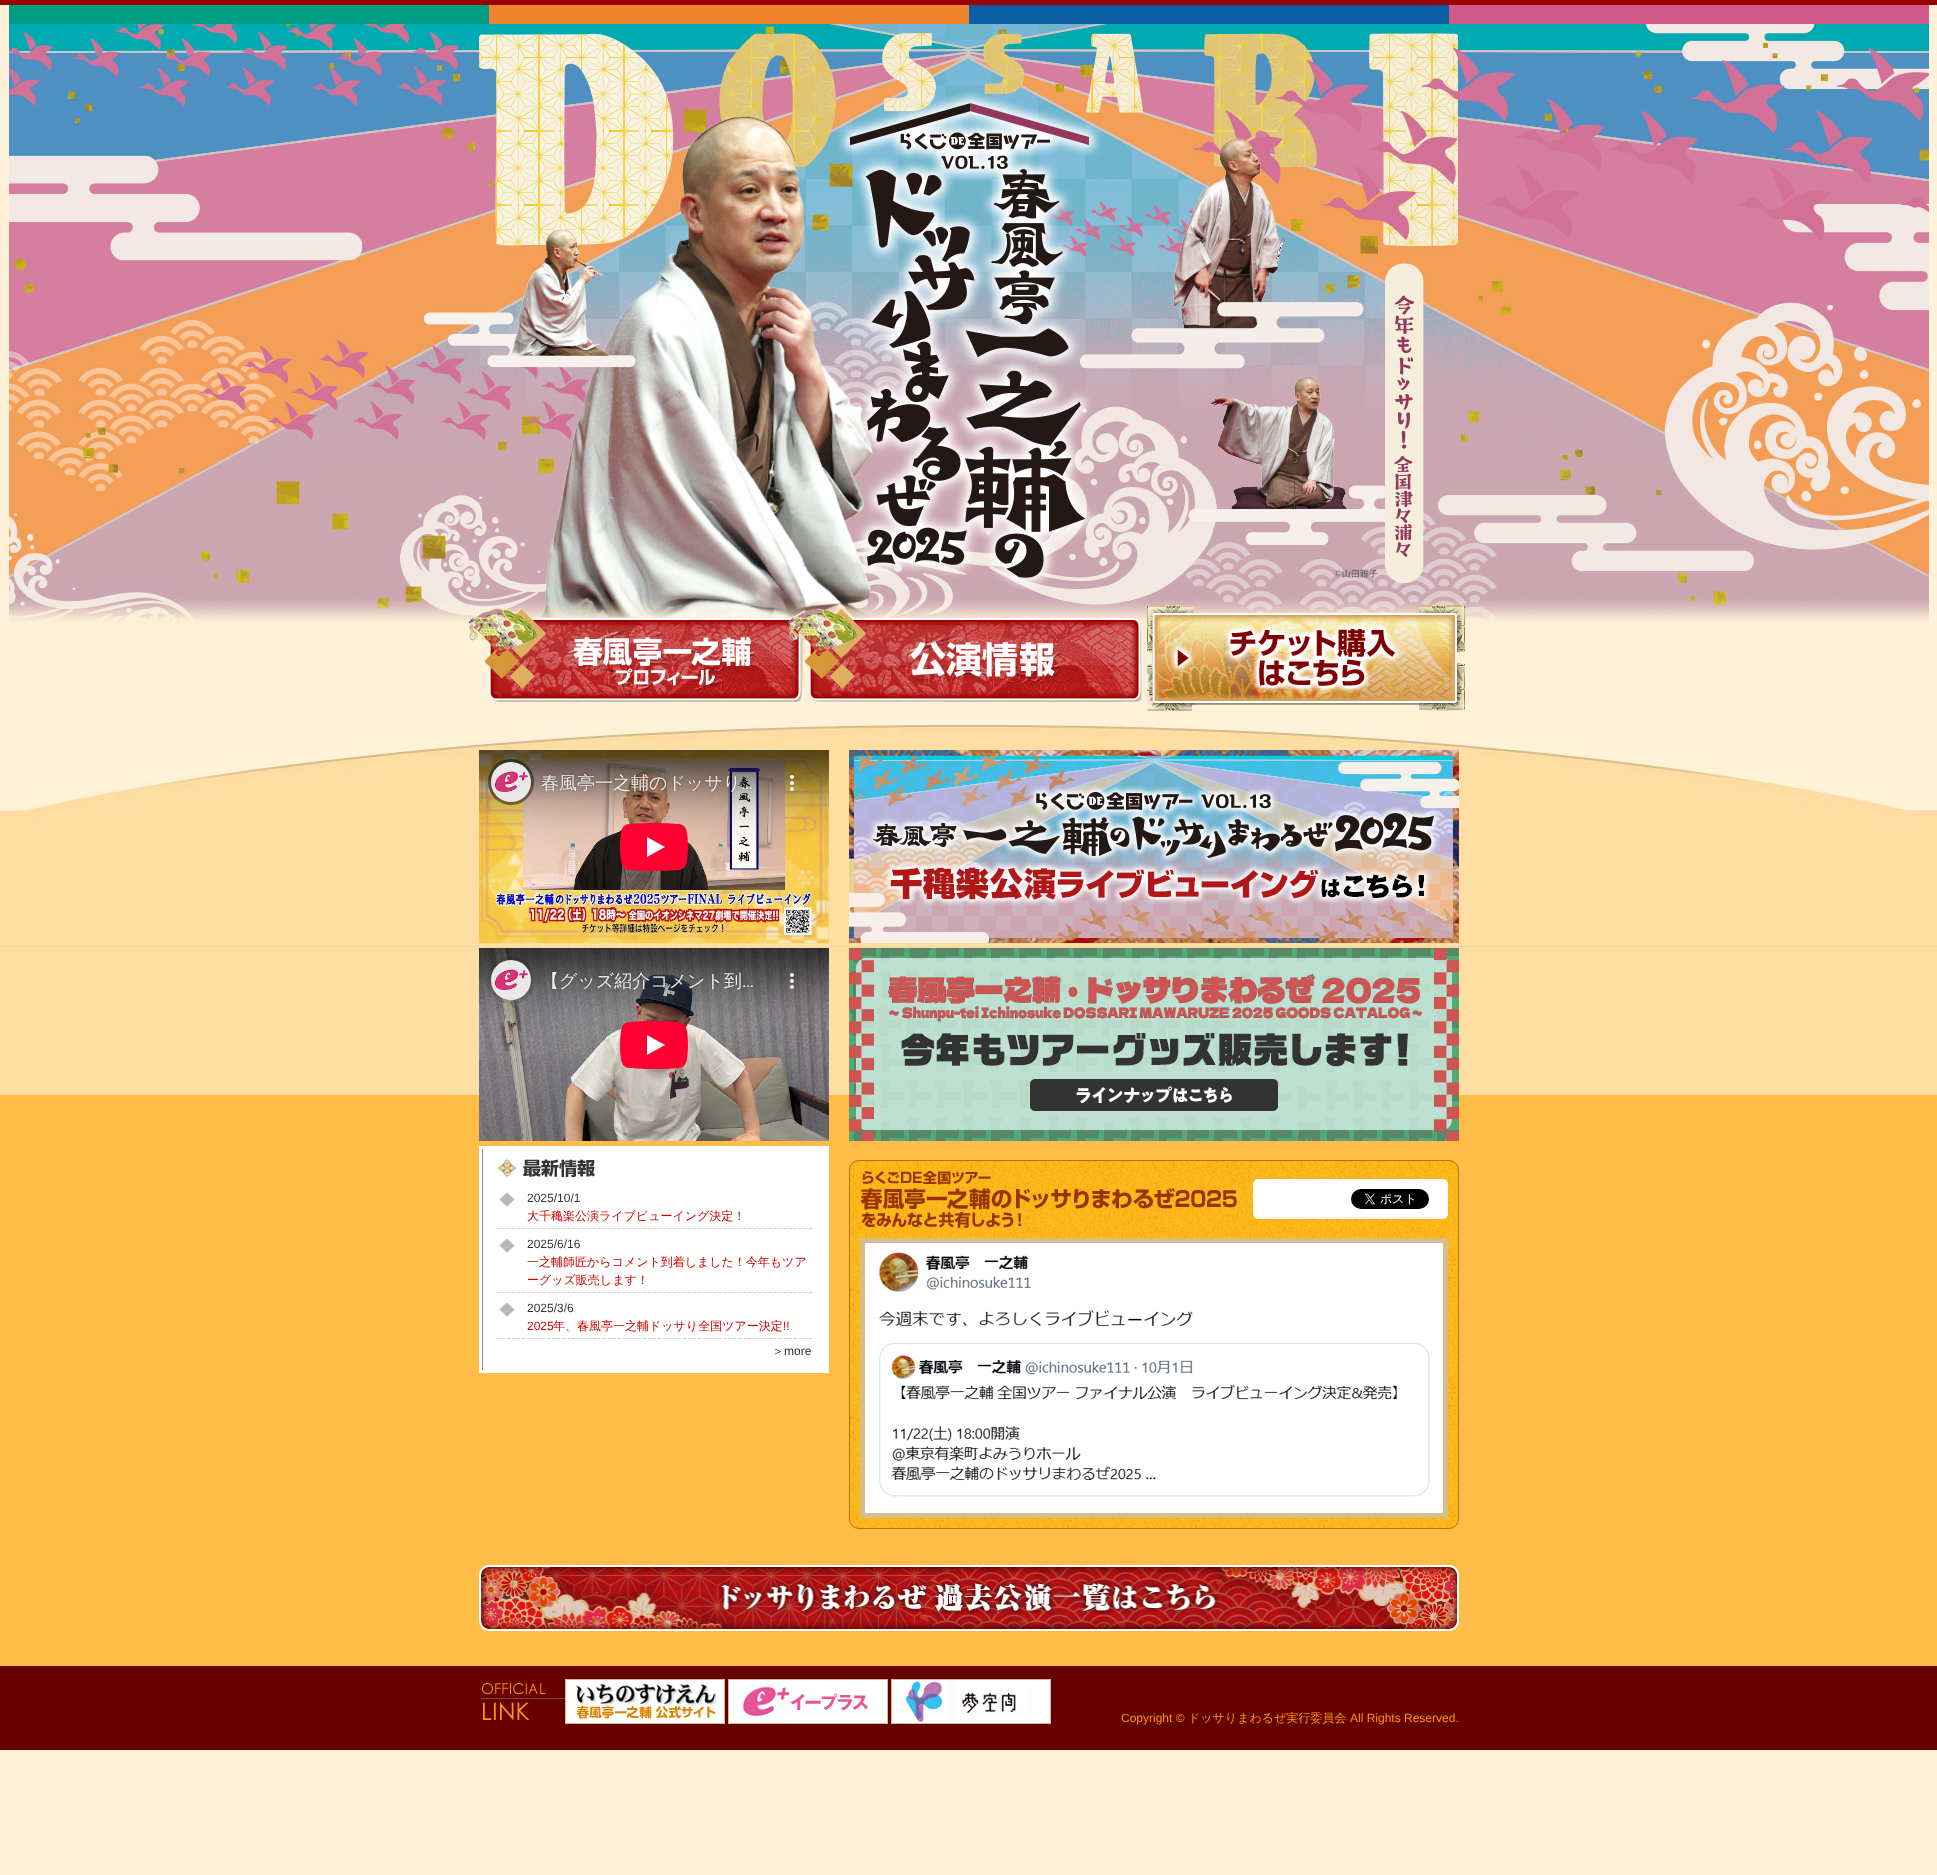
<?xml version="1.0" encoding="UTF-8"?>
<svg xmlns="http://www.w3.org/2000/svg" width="1937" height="1875">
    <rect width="100%" height="100%" fill="#FFF2D9"/>
    <image x="9" y="5" width="1920" height="619" href="img_01.png"/>
    <rect x="0" y="0" width="1937" height="5" fill="#990000"/>
    <image x="469" y="21" width="1000" height="589" href="img_02.png"/>
    <image x="469" y="608" width="336" height="94" href="img_03.png"/>
    <image x="805" y="608" width="337" height="95" href="img_04.png"/>
    <image x="1147" y="605" width="318" height="106" href="img_05.png"/>
    <rect x="0" y="1095" width="1937" height="571" fill="#FFBC47"/>
    <image x="0" y="725" width="1937" height="370" href="img_06.png"/>
    <image x="479" y="750" width="350" height="193" href="img_07.png"/>
    <image x="479" y="948" width="350" height="193" href="img_08.png"/>
    <rect x="479" y="1146" width="350" height="227" fill="#FFFFFF"/>
    <rect x="482" y="1149" width="1" height="221" fill="#888888"/>
    <image x="498" y="1159" width="97" height="18" href="img_09.png"/>
    <image x="499" y="1192" width="16" height="15" href="img_10.png"/>
    <path d="M 497 1228.5 H 812" fill="none" stroke="#CCCCCC" stroke-dasharray="3 2.03"/>
    <text x="527" y="1202" font-family="Liberation Sans" font-size="12" fill="#333333">2025/10/1</text>
    <text x="527" y="1220" font-family="WenQuanYi Zen Hei" font-size="12" font-weight="500" fill="#CC0000">大千穐楽公演ライブビューイング決定！</text>
    <image x="499" y="1238" width="16" height="15" href="img_10.png"/>
    <path d="M 497 1292.5 H 812" fill="none" stroke="#CCCCCC" stroke-dasharray="3 2.03"/>
    <text x="527" y="1248" font-family="Liberation Sans" font-size="12" fill="#333333">2025/6/16</text>
    <text font-family="WenQuanYi Zen Hei" font-size="12" font-weight="500" fill="#CC0000">
        <tspan x="527" y="1266">一之輔師匠からコメント到着しました！今年もツア</tspan>
        <tspan x="527" y="1284">ーグッズ販売します！</tspan>
    </text>
    <image x="499" y="1302" width="16" height="15" href="img_10.png"/>
    <path d="M 497 1338.5 H 812" fill="none" stroke="#CCCCCC" stroke-dasharray="3 2.03"/>
    <text x="527" y="1312" font-family="Liberation Sans" font-size="12" fill="#333333">2025/3/6</text>
    <text x="527" y="1330" font-family="Liberation Sans" font-size="12" fill="#CC0000">2025</text>
    <text x="553" y="1330" font-family="WenQuanYi Zen Hei" font-size="12" font-weight="500" fill="#CC0000">年、春風亭一之輔ドッサり全国ツアー決定</text>
    <text x="783" y="1330" font-family="Liberation Sans" font-size="12" fill="#CC0000">!!</text>
    <text x="772" y="1355" font-family="WenQuanYi Zen Hei" font-size="12" font-weight="500" fill="#333333">＞</text>
    <text x="784" y="1355" font-family="Liberation Sans" font-size="12" fill="#333333">more</text>
    <image x="849" y="750" width="610" height="193" href="img_11.png"/>
    <image x="849" y="948" width="610" height="193" href="img_12.png"/>
    <image x="849" y="1160" width="610" height="369" href="img_13.png"/>
    <rect x="849.5" y="1160.5" width="609" height="368" rx="9.5" fill="none" stroke="#AA7700"/>
    <image x="860" y="1171" width="377" height="57" href="img_14.png"/>
    <rect x="1253" y="1179" width="195" height="40" rx="5" fill="#FFFFFF"/>
    <image x="1351" y="1189" width="78" height="20" href="img_15.png"/>
    <rect x="862.5" y="1240.5" width="583" height="275" fill="#FFFFFF" stroke="#D7BC8C" stroke-width="5"/>
    <image x="879" y="1252" width="551" height="245" href="img_16.png"/>
    <image x="479" y="1565" width="980" height="66" href="img_17.png"/>
    <rect x="0" y="1666" width="1937" height="84" fill="#660000"/>
    <image x="481" y="1683" width="84" height="37" href="img_18.png"/>
    <image x="565" y="1679" width="160" height="45" href="img_19.png"/>
    <image x="728" y="1679" width="160" height="45" href="img_20.png"/>
    <image x="891" y="1679" width="160" height="45" href="img_21.png"/>
    <text x="1121" y="1722" font-family="Liberation Sans" font-size="12" fill="#FF9600">Copyright ©</text>
    <text x="1188" y="1722" font-family="WenQuanYi Zen Hei" font-size="12" font-weight="500" fill="#FF9600">ドッサりまわるぜ実行委員会</text>
    <text x="1350" y="1722" font-family="Liberation Sans" font-size="12" fill="#FF9600">All Rights Reserved.</text>
</svg>
